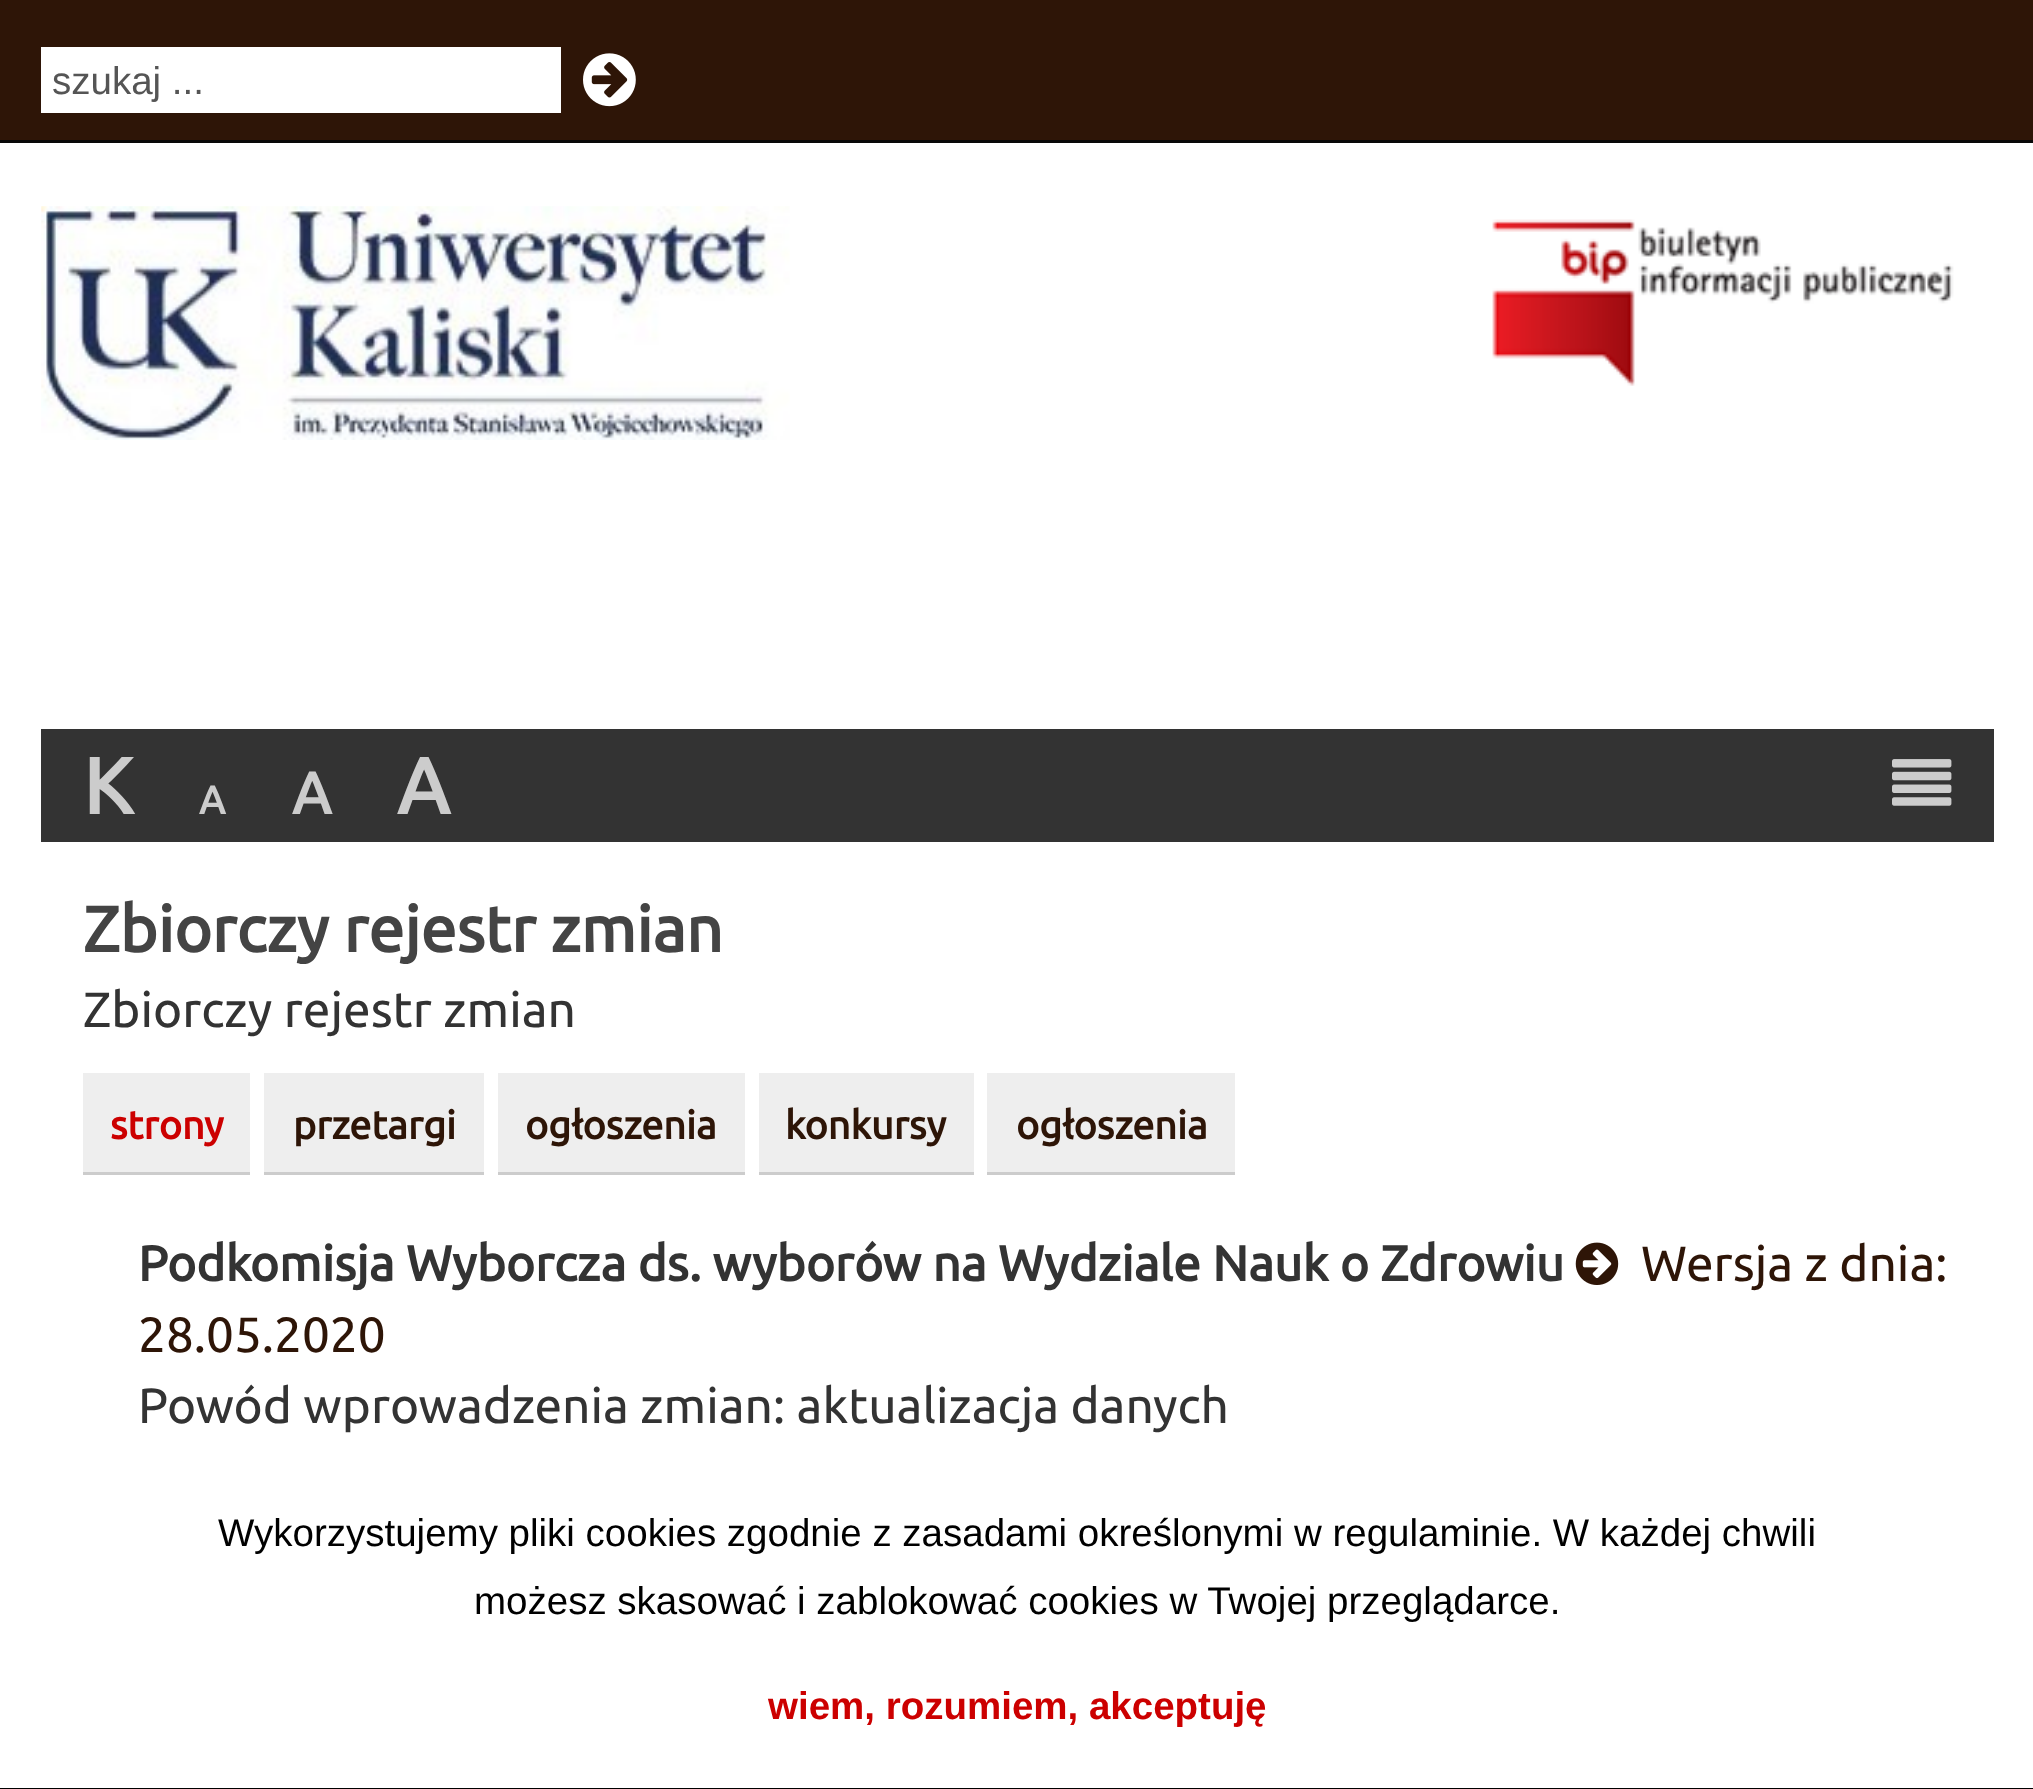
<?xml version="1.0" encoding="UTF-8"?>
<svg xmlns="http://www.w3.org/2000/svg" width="2033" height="1789">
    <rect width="100%" height="100%" fill="#FFFFFF"/>
    <rect x="0" y="0" width="2033" height="140" fill="#2E1507"/>
    <rect x="0" y="140" width="2033" height="3" fill="#080808"/>
    <rect x="41" y="47" width="520" height="66" fill="#FFFFFF"/>
    <text x="52" y="94" font-family="Liberation Sans" font-size="38.5" fill="#555555">szukaj ...</text>
    <image x="583" y="53" width="53" height="54" href="img_01.png"/>
    <image x="41" y="206" width="749" height="234" href="img_02.png"/>
    <image x="1492" y="219" width="462" height="167" href="img_03.png"/>
    <rect x="41" y="729" width="1953" height="113" fill="#333333"/>
    <text x="83" y="814" font-family="Ubuntu" font-size="79" font-weight="700" fill="#CCCCCC">K</text>
    <text x="199" y="814" font-family="Ubuntu" font-size="39.5" font-weight="700" fill="#CCCCCC">A</text>
    <text x="292" y="814" font-family="Ubuntu" font-size="59" font-weight="700" fill="#CCCCCC">A</text>
    <text x="397" y="814" font-family="Ubuntu" font-size="79" font-weight="700" fill="#CCCCCC">A</text>
    <image x="1892" y="759" width="60" height="47" href="img_04.png"/>
    <text x="83" y="952" font-family="Ubuntu" font-size="64.25" font-weight="700" fill="#444444">Zbiorczy rejestr zmian</text>
    <text x="83" y="1027" font-family="Ubuntu" font-size="49.5" fill="#333333">Zbiorczy rejestr zmian</text>
    <rect x="83" y="1073" width="167" height="99" fill="#EEEEEE"/>
    <rect x="83" y="1172" width="167" height="3" fill="#CCCCCC"/>
    <text x="110" y="1139" font-family="Ubuntu" font-size="39.5" font-weight="700" fill="#CC0000">strony</text>
    <rect x="264" y="1073" width="220" height="99" fill="#EEEEEE"/>
    <rect x="264" y="1172" width="220" height="3" fill="#CCCCCC"/>
    <text x="293" y="1139" font-family="Ubuntu" font-size="39.5" font-weight="700" fill="#2E1507">przetargi</text>
    <rect x="498" y="1073" width="247" height="99" fill="#EEEEEE"/>
    <rect x="498" y="1172" width="247" height="3" fill="#CCCCCC"/>
    <text x="525" y="1139" font-family="Ubuntu" font-size="39.5" font-weight="700" fill="#2E1507">ogłoszenia</text>
    <rect x="759" y="1073" width="215" height="99" fill="#EEEEEE"/>
    <rect x="759" y="1172" width="215" height="3" fill="#CCCCCC"/>
    <text x="785" y="1139" font-family="Ubuntu" font-size="39.5" font-weight="700" fill="#2E1507">konkursy</text>
    <rect x="987" y="1073" width="248" height="99" fill="#EEEEEE"/>
    <rect x="987" y="1172" width="248" height="3" fill="#CCCCCC"/>
    <text x="1016" y="1139" font-family="Ubuntu" font-size="39.5" font-weight="700" fill="#2E1507">ogłoszenia</text>
    <image x="1575" y="1242" width="44" height="43" href="img_05.png"/>
    <text x="1641" y="1281" font-family="Ubuntu" font-size="49.5" fill="#2E1507">Wersja z dnia:</text>
    <text x="138" y="1352" font-family="Ubuntu" font-size="49.5" fill="#2E1507">28.05.2020</text>
    <text x="138" y="1281" font-family="Ubuntu" font-size="49.5" font-weight="700" fill="#333333">Podkomisja Wyborcza ds. wyborów na Wydziale Nauk o Zdrowiu</text>
    <text x="138" y="1423" font-family="Ubuntu" font-size="49.5" fill="#333333">Powód wprowadzenia zmian: aktualizacja danych</text>
    <rect x="0" y="1788" width="2033" height="1" fill="#000000"/>
    <text x="218" y="1546" font-family="Liberation Sans" font-size="38.5" fill="#000000">Wykorzystujemy pliki cookies zgodnie z zasadami określonymi w regulaminie. W każdej chwili</text>
    <text x="474" y="1614" font-family="Liberation Sans" font-size="38.5" fill="#000000">możesz skasować i zablokować cookies w Twojej przeglądarce.</text>
    <text x="768" y="1719" font-family="Liberation Sans" font-size="38.5" font-weight="700" fill="#CC0000">wiem, rozumiem, akceptuję</text>
</svg>
